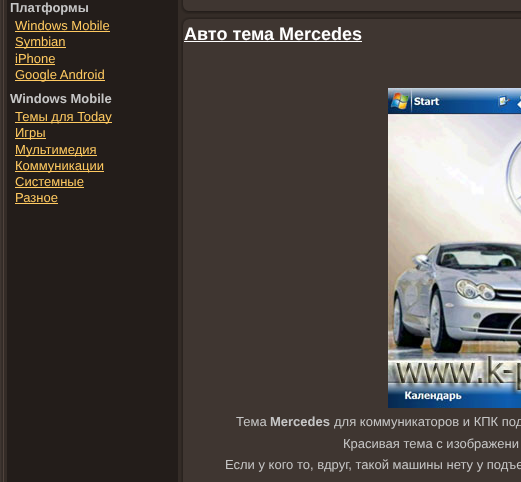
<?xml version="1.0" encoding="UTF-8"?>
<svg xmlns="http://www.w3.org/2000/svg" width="521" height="482">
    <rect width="100%" height="100%" fill="#3F3631"/>
    <image x="1" y="0" width="6" height="482" href="img_01.png"/>
    <rect x="178" y="0" width="343" height="482" fill="#342C27"/>
    <rect x="7" y="0" width="171" height="482" fill="#231D1A"/>
    <text x="10" y="12" font-family="Liberation Sans" font-size="13" font-weight="700" fill="#C6C6C6">Платформы</text>
    <text x="15" y="30" font-family="Liberation Sans" font-size="13" fill="#FFCA61">Windows Mobile</text>
    <rect x="15" y="31" width="95" height="1" fill="#FFCA61"/>
    <rect x="15" y="47" width="51" height="1" fill="#FFCA61"/>
    <text font-family="Liberation Sans" font-size="13" fill="#FFCA61">
        <tspan x="15" y="46">Symbian</tspan>
        <tspan x="15" y="63">iPhone</tspan>
    </text>
    <rect x="15" y="64" width="40" height="1" fill="#FFCA61"/>
    <rect x="15" y="80" width="90" height="1" fill="#FFCA61"/>
    <text x="15" y="79" font-family="Liberation Sans" font-size="13" fill="#FFCA61">Google Android</text>
    <text x="10" y="103" font-family="Liberation Sans" font-size="13" font-weight="700" fill="#C6C6C6">Windows Mobile</text>
    <rect x="15" y="122" width="97" height="1" fill="#FFCA61"/>
    <text x="15" y="121" font-family="Liberation Sans" font-size="13" fill="#FFCA61">Темы для Today</text>
    <rect x="15" y="138" width="31" height="1" fill="#FFCA61"/>
    <text x="15" y="137" font-family="Liberation Sans" font-size="13" fill="#FFCA61">Игры</text>
    <rect x="15" y="155" width="82" height="1" fill="#FFCA61"/>
    <text x="15" y="154" font-family="Liberation Sans" font-size="13" fill="#FFCA61">Мультимедия</text>
    <rect x="15" y="171" width="89" height="1" fill="#FFCA61"/>
    <text font-family="Liberation Sans" font-size="13" fill="#FFCA61">
        <tspan x="15" y="170">Коммуникации</tspan>
        <tspan x="15" y="186">Системные</tspan>
    </text>
    <rect x="15" y="187" width="69" height="1" fill="#FFCA61"/>
    <text x="15" y="202" font-family="Liberation Sans" font-size="13" fill="#FFCA61">Разное</text>
    <rect x="15" y="203" width="43" height="1" fill="#FFCA61"/>
    <image x="181" y="0" width="17" height="14" href="img_02.png"/>
    <image x="198" y="0" width="323" height="14" href="img_03.png"/>
    <image x="181" y="17" width="17" height="17" href="img_04.png"/>
    <image x="198" y="17" width="323" height="17" href="img_05.png"/>
    <image x="181" y="34" width="17" height="448" href="img_07.png"/>
    <rect x="198" y="34" width="323" height="448" fill="#3F3631"/>
    <text x="184" y="40" font-family="Liberation Sans" font-size="18" font-weight="700" fill="#FFFFFF">Авто тема Mercedes</text>
    <rect x="184" y="41" width="178" height="1" fill="#FFFFFF"/>
    <image x="388" y="88" width="133" height="320" href="img_06.png"/>
    <text x="236" y="426" font-family="Liberation Sans" font-size="13" fill="#C6C6C6">Тема</text>
    <text x="270" y="426" font-family="Liberation Sans" font-size="13" font-weight="700" fill="#C6C6C6">Mercedes</text>
    <text x="334" y="426" font-family="Liberation Sans" font-size="13" fill="#C6C6C6">для коммуникаторов и КПК под</text>
    <text x="343" y="448" font-family="Liberation Sans" font-size="13" fill="#C6C6C6">Красивая тема с изображени</text>
    <text x="225" y="469" font-family="Liberation Sans" font-size="13" fill="#C6C6C6">Если у кого то, вдруг, такой машины нету у подъе</text>
</svg>
